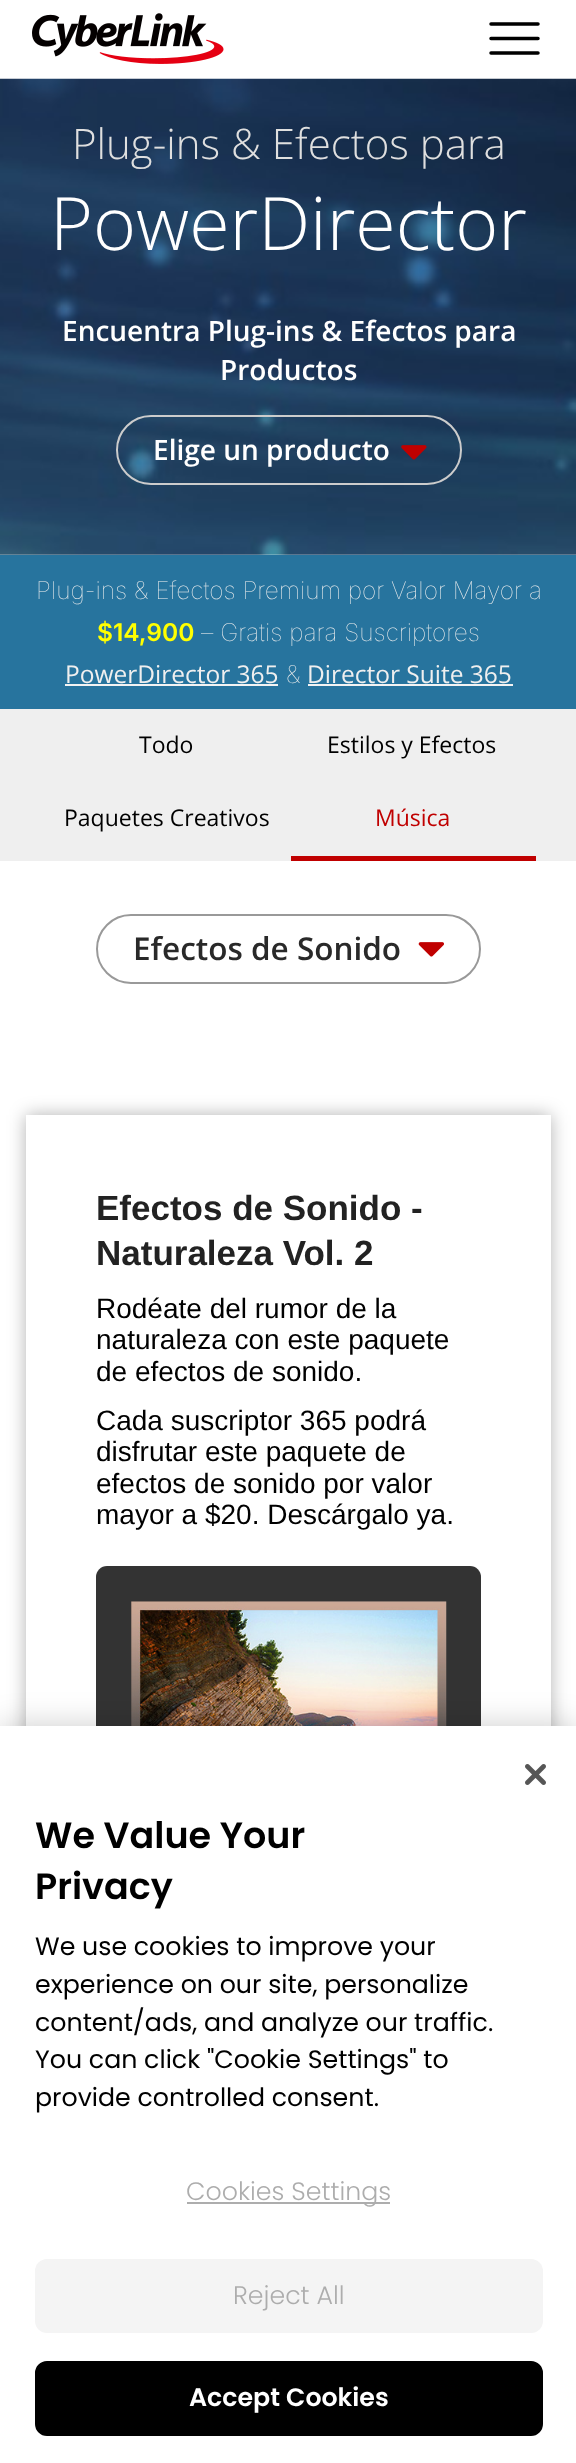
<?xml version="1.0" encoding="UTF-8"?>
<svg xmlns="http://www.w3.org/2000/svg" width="576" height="2463">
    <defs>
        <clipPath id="clip1"><path d="M 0 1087 H 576 V 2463 H 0 Z M 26 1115 H 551 V 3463 H 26 Z" clip-rule="evenodd"/></clipPath>
        <filter id="blur1" x="-50%" y="-200%" width="200%" height="500%"><feGaussianBlur stdDeviation="9"/></filter>
        <filter id="blur2" x="-50%" y="-200%" width="200%" height="500%"><feGaussianBlur stdDeviation="16"/></filter>
    </defs>
    <rect width="100%" height="100%" fill="#FFFFFF"/>
    <image x="32" y="13" width="192" height="51" href="img_01.png"/>
    <path d="M 491 24 H 538 M 491 38.5 H 538 M 491 53 H 538" fill="none" stroke="#000000" stroke-width="3.5" stroke-linecap="round"/>
    <image x="0" y="78" width="576" height="477" href="img_02.png"/>
    <text x="72" y="159" font-family="Open Sans" font-size="42" font-weight="300" fill="#DFDFDF">Plug-ins &amp; Efectos para</text>
    <text x="50" y="250" font-family="Open Sans" font-size="73.5" font-weight="300" fill="#FFFFFF">PowerDirector</text>
    <text x="62" y="341" font-family="Open Sans" font-size="28" font-weight="600" fill="#FFFFFF">Encuentra Plug-ins &amp; Efectos para</text>
    <text x="220" y="380" font-family="Open Sans" font-size="28" font-weight="600" fill="#FFFFFF">Productos</text>
    <image x="401" y="445" width="26" height="15" href="img_03.png"/>
    <rect x="117" y="416" width="344" height="68" rx="34" fill="none" stroke="#CCCCCC" stroke-width="2"/>
    <text x="153" y="460" font-family="Open Sans" font-size="28" font-weight="600" fill="#FFFFFF">Elige un producto</text>
    <rect x="0" y="555" width="576" height="154" fill="#27749E"/>
    <text x="36" y="599" font-family="Inter" font-size="24.5" font-weight="100" fill="#EFEFEF">Plug-ins &amp; Efectos Premium por Valor Mayor a</text>
    <text x="97" y="641" font-family="Inter" font-size="24.5" font-weight="600" fill="#FFFF00">$14,900</text>
    <text x="201" y="641" font-family="Inter" font-size="24.5" font-weight="100" fill="#EFEFEF">– Gratis para Suscriptores</text>
    <text x="65" y="683" font-family="Open Sans" font-size="24.5" fill="#EFEFEF">PowerDirector 365</text>
    <rect x="65" y="684" width="213" height="2" fill="#F3F3F3"/>
    <text x="286" y="683" font-family="Inter" font-size="24.5" font-weight="100" fill="#EFEFEF">&amp;</text>
    <text x="307" y="683" font-family="Open Sans" font-size="24.5" fill="#EFEFEF">Director Suite 365</text>
    <rect x="308" y="684" width="205" height="2" fill="#F3F3F3"/>
    <rect x="0" y="709" width="576" height="152" fill="#EFEFEF"/>
    <text x="139" y="753" font-family="Open Sans" font-size="23" fill="#000000">Todo</text>
    <text x="327" y="753" font-family="Open Sans" font-size="23" fill="#000000">Estilos y Efectos</text>
    <text x="64" y="826" font-family="Open Sans" font-size="23" fill="#000000">Paquetes Creativos</text>
    <rect x="291" y="856" width="245" height="5" fill="#C00000"/>
    <text x="375" y="826" font-family="Open Sans" font-size="23" fill="#C00000">Música</text>
    <image x="418" y="942" width="26" height="15" href="img_04.png"/>
    <rect x="97" y="915" width="383" height="68" rx="34" fill="none" stroke="#999999" stroke-width="2"/>
    <text x="133" y="960" font-family="Open Sans" font-size="31.5" font-weight="600" fill="#292929">Efectos de Sonido</text>
    <g clip-path="url(#clip1)">
        <rect x="26" y="1115" width="525" height="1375" fill="#000000" fill-opacity="0.3" filter="url(#blur1)"/>
    </g>
    <text font-family="Liberation Sans" font-size="35" font-weight="700" fill="#222222">
        <tspan x="96" y="1220">Efectos de Sonido -</tspan>
        <tspan x="96" y="1265">Naturaleza Vol. 2</tspan>
    </text>
    <text font-family="Liberation Sans" font-size="28" fill="#000000">
        <tspan x="96" y="1318">Rodéate del rumor de la</tspan>
        <tspan x="96" y="1349">naturaleza con este paquete</tspan>
        <tspan x="96" y="1381">de efectos de sonido.</tspan>
        <tspan x="96" y="1430">Cada suscriptor 365 podrá</tspan>
        <tspan x="96" y="1461">disfrutar este paquete de</tspan>
        <tspan x="96" y="1493">efectos de sonido por valor</tspan>
        <tspan x="96" y="1524">mayor a $20. Descárgalo ya.</tspan>
    </text>
    <rect x="96" y="1566" width="385" height="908" rx="11" fill="#333333"/>
    <image x="131" y="1601" width="316" height="125" href="img_05.png"/>
    <rect x="0" y="1726" width="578" height="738" fill="#000000" fill-opacity="0.2" filter="url(#blur2)"/>
    <rect x="0" y="1726" width="576" height="737" fill="#FFFFFF"/>
    <image x="525" y="1764" width="21" height="21" href="img_06.png"/>
    <text font-family="Poppins" font-size="36.5" font-weight="600" fill="#000000">
        <tspan x="35" y="1848">We Value Your</tspan>
        <tspan x="35" y="1899">Privacy</tspan>
    </text>
    <text font-family="Poppins" font-size="25.25" fill="#000000">
        <tspan x="35" y="1955">We use cookies to improve your</tspan>
        <tspan x="35" y="1993">experience on our site, personalize</tspan>
        <tspan x="35" y="2031">content/ads, and analyze our traffic.</tspan>
        <tspan x="35" y="2068">You can click "Cookie Settings" to</tspan>
        <tspan x="35" y="2106">provide controlled consent.</tspan>
    </text>
    <rect x="187" y="2202" width="203" height="2" fill="#ADADAD"/>
    <text x="186" y="2200" font-family="Poppins" font-size="25.25" font-weight="300" fill="#ADADAD">Cookies Settings</text>
    <rect x="35" y="2259" width="508" height="74" rx="12" fill="#F4F4F4"/>
    <text x="233" y="2304" font-family="Poppins" font-size="25.25" font-weight="300" fill="#ADADAD">Reject All</text>
    <rect x="36" y="2362" width="506" height="73" rx="11" fill="#000000" stroke="#000000" stroke-width="2"/>
    <text x="189" y="2406" font-family="Poppins" font-size="25.25" font-weight="600" fill="#FFFFFF">Accept Cookies</text>
</svg>
